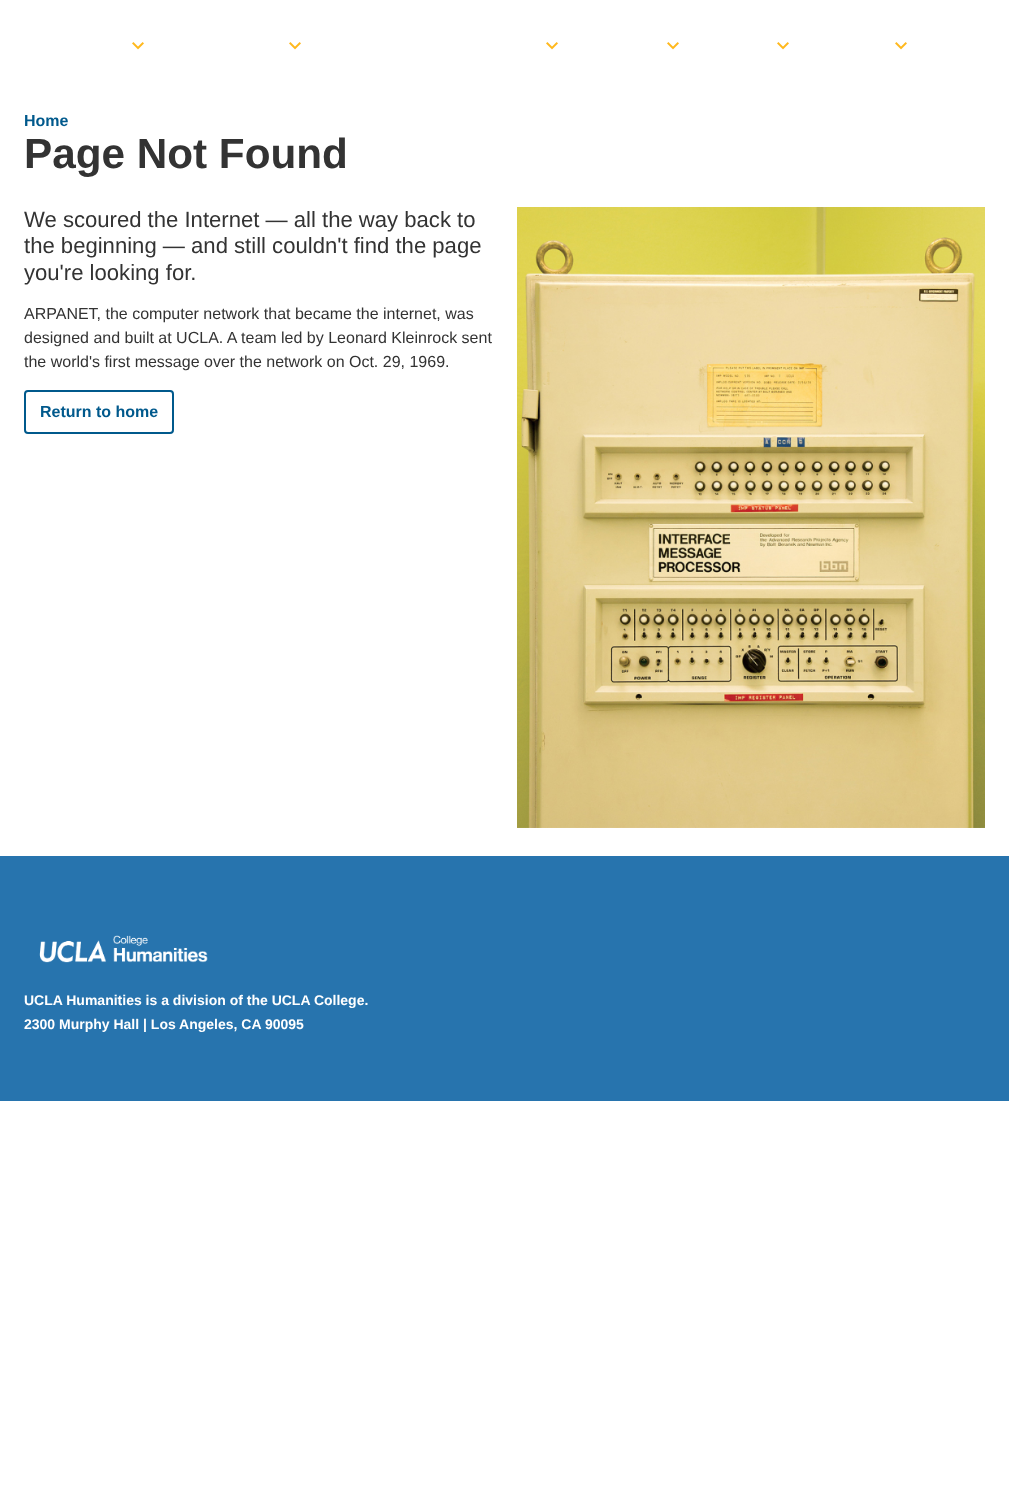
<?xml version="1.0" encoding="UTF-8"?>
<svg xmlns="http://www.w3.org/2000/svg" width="1009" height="1487">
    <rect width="100%" height="100%" fill="#FFFFFF"/>
    <image x="132" y="42" width="12" height="8" href="img_01.png"/>
    <image x="289" y="42" width="12" height="8" href="img_01.png"/>
    <image x="546" y="42" width="12" height="8" href="img_01.png"/>
    <image x="667" y="42" width="12" height="8" href="img_01.png"/>
    <image x="777" y="42" width="12" height="8" href="img_01.png"/>
    <image x="895" y="42" width="12" height="8" href="img_01.png"/>
    <text x="24" y="126" font-family="Liberation Sans" font-size="16" font-weight="700" fill="#00598C">Home</text>
    <text x="24" y="168" font-family="Liberation Sans" font-size="42.25" font-weight="700" fill="#333333">Page Not Found</text>
    <text font-family="Liberation Sans" font-size="22.1" fill="#333333">
        <tspan x="24" y="227">We scoured the Internet — all the way back to</tspan>
        <tspan x="24" y="253">the beginning — and still couldn't find the page</tspan>
        <tspan x="24" y="280">you're looking for.</tspan>
    </text>
    <text font-family="Liberation Sans" font-size="16" fill="#333333">
        <tspan x="24" y="319">ARPANET, the computer network that became the internet, was</tspan>
        <tspan x="24" y="343">designed and built at UCLA. A team led by Leonard Kleinrock sent</tspan>
        <tspan x="24" y="367">the world's first message over the network on Oct. 29, 1969.</tspan>
    </text>
    <rect x="25" y="391" width="148" height="42" rx="3" fill="none" stroke="#00598C" stroke-width="2"/>
    <text x="40" y="417" font-family="Liberation Sans" font-size="16" font-weight="700" fill="#00598C">Return to home</text>
    <image x="517" y="207" width="468" height="621" href="img_02.png"/>
    <rect x="0" y="856" width="1009" height="245" fill="#2774AE"/>
    <image x="39" y="935" width="169" height="28" href="img_03.png"/>
    <text font-family="Liberation Sans" font-size="14" font-weight="700" fill="#FFFFFF">
        <tspan x="24" y="1005">UCLA Humanities is a division of the UCLA College.</tspan>
        <tspan x="24" y="1029">2300 Murphy Hall | Los Angeles, CA 90095</tspan>
    </text>
</svg>
